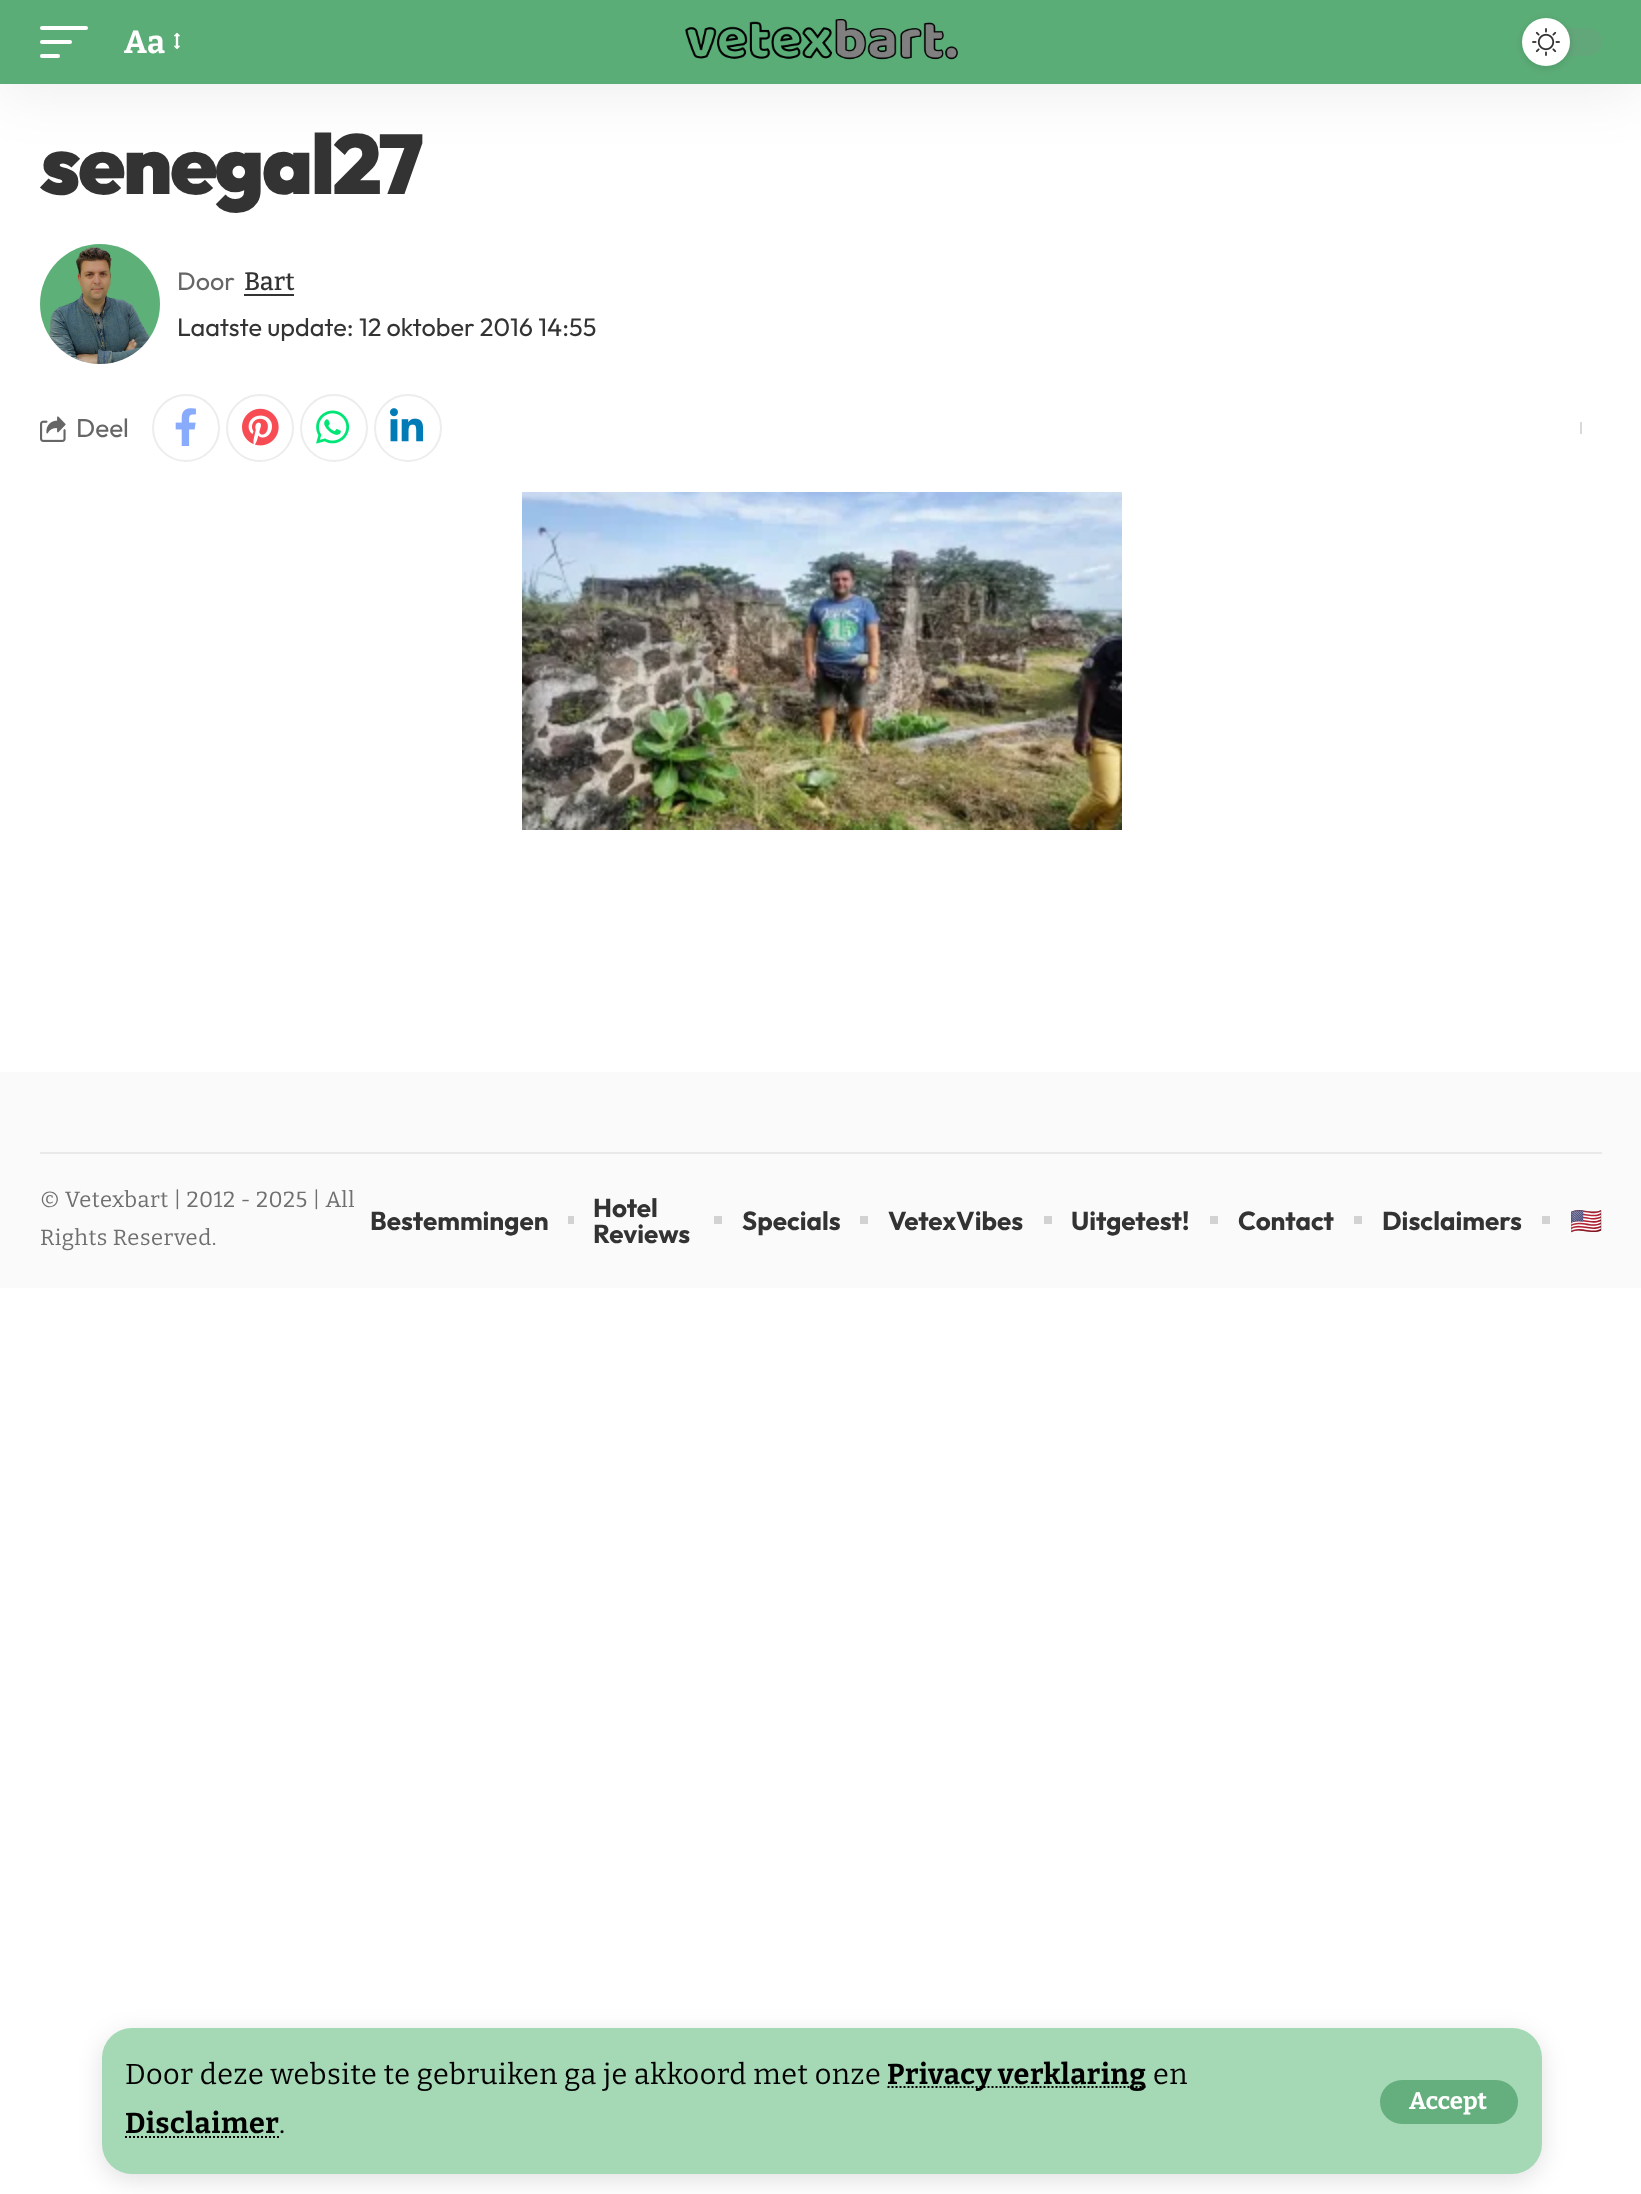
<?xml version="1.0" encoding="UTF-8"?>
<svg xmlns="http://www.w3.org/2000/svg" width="1641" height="2194">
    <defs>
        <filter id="blur1" x="-50%" y="-200%" width="200%" height="500%"><feGaussianBlur stdDeviation="30"/></filter>
        <filter id="blur2" x="-50%" y="-200%" width="200%" height="500%"><feGaussianBlur stdDeviation="4"/></filter>
        <filter id="blur3" x="-50%" y="-200%" width="200%" height="500%"><feGaussianBlur stdDeviation="12"/></filter>
    </defs>
    <rect width="100%" height="100%" fill="#FFFFFF"/>
    <rect x="0" y="8" width="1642" height="84" fill="#000000" fill-opacity="0.07" filter="url(#blur1)"/>
    <rect x="0" y="0" width="1641" height="84" fill="#5BAD77"/>
    <rect x="40" y="26" width="48" height="4" rx="2" fill="#FFFFFF"/>
    <rect x="40" y="40" width="32" height="4" rx="2" fill="#FFFFFF"/>
    <rect x="40" y="54" width="20" height="4" rx="2" fill="#FFFFFF"/>
    <text x="124" y="53" font-family="Bitter" font-size="32" font-weight="700" letter-spacing="0.53" fill="#FFFFFF">Aa</text>
    <image x="174" y="32" width="6" height="18" href="img_01.png"/>
    <image x="685" y="18" width="273" height="42" href="img_02.png"/>
    <rect x="1522" y="28" width="80" height="28" rx="14" fill="#62A77A"/>
    <rect x="1522" y="20" width="48" height="48" rx="24" fill="#000000" fill-opacity="0.12" filter="url(#blur2)"/>
    <circle cx="1546" cy="42" r="24" fill="#FFFFFF"/>
    <image x="1532" y="28" width="28" height="28" href="img_03.png"/>
    <rect x="102" y="2034" width="1440" height="146" rx="30" fill="#000000" fill-opacity="0.12" filter="url(#blur3)"/>
    <rect x="102" y="2028" width="1440" height="146" rx="30" fill="#A5D8B5"/>
    <text x="125" y="2084" font-family="Bitter" font-size="28.8" letter-spacing="0.53" fill="#000000">Door deze website te gebruiken ga je akkoord met onze</text>
    <path d="M 887.5 2087 H 1147" fill="none" stroke="#000000" stroke-width="2" stroke-dasharray="2 2"/>
    <text x="887" y="2084" font-family="Bitter" font-size="28.8" font-weight="700" letter-spacing="0.53" fill="#000000">Privacy verklaring</text>
    <text x="1153" y="2084" font-family="Bitter" font-size="28.8" letter-spacing="0.53" fill="#000000">en</text>
    <text x="125" y="2133" font-family="Bitter" font-size="28.8" font-weight="700" letter-spacing="0.53" fill="#000000">Disclaimer</text>
    <path d="M 125 2137 H 279.5" fill="none" stroke="#000000" stroke-width="2" stroke-dasharray="2 2"/>
    <text x="279" y="2133" font-family="Bitter" font-size="28.8" letter-spacing="0.53" fill="#000000">.</text>
    <rect x="1380" y="2080" width="138" height="44" rx="22" fill="#65AE7D"/>
    <text x="1409" y="2109" font-family="Bitter" font-size="24" font-weight="700" fill="#FFFFFF">Accept</text>
    <text x="40" y="194" font-family="Outfit" font-size="84" font-weight="900" letter-spacing="-2.5" fill="#333333">senegal27</text>
    <image x="40" y="244" width="120" height="120" href="img_04.png"/>
    <text x="177" y="290" font-family="Outfit" font-size="25.25" fill="#666666">Door</text>
    <text x="244" y="290" font-family="Bitter" font-size="25.25" font-weight="500" fill="#333333">Bart</text>
    <rect x="244" y="294" width="50" height="2" fill="#333333"/>
    <text x="177" y="336" font-family="Outfit" font-size="25.25" fill="#333333">Laatste update: 12 oktober 2016 14:55</text>
    <image x="40" y="416" width="26" height="26" href="img_05.png"/>
    <text x="76" y="437" font-family="Outfit" font-size="26" fill="#666666">Deel</text>
    <circle cx="186" cy="428" r="33" fill="none" stroke="#EDEDED" stroke-width="2"/>
    <image x="175" y="408" width="21" height="38" href="img_06.png"/>
    <circle cx="260" cy="428" r="33" fill="none" stroke="#EDEDED" stroke-width="2"/>
    <image x="242" y="408" width="37" height="38" href="img_07.png"/>
    <circle cx="334" cy="428" r="33" fill="none" stroke="#EDEDED" stroke-width="2"/>
    <image x="316" y="410" width="34" height="34" href="img_08.png"/>
    <circle cx="408" cy="428" r="33" fill="none" stroke="#EDEDED" stroke-width="2"/>
    <image x="390" y="408" width="34" height="34" href="img_09.png"/>
    <rect x="1580" y="422" width="2" height="12" fill="#D9D9D9"/>
    <image x="522" y="492" width="600" height="338" href="img_10.png"/>
    <rect x="0" y="1072" width="1641" height="216" fill="#FAFAFA"/>
    <rect x="40" y="1152" width="1562" height="2" fill="#E9E9E9"/>
    <text font-family="Bitter" font-size="22" letter-spacing="0.53" fill="#6F6F6F">
        <tspan x="40" y="1207">© Vetexbart | 2012 - 2025 | All</tspan>
        <tspan x="40" y="1245">Rights Reserved.</tspan>
    </text>
    <text x="370" y="1230" font-family="Outfit" font-size="26" font-weight="700" fill="#333333">Bestemmingen</text>
    <rect x="568" y="1216" width="6" height="8" fill="#D2D2D2"/>
    <text font-family="Outfit" font-size="26" font-weight="700" fill="#333333">
        <tspan x="593" y="1217">Hotel</tspan>
        <tspan x="593" y="1243">Reviews</tspan>
    </text>
    <rect x="714" y="1216" width="8" height="8" fill="#D2D2D2"/>
    <text x="742" y="1230" font-family="Outfit" font-size="26" font-weight="700" fill="#333333">Specials</text>
    <rect x="860" y="1216" width="8" height="8" fill="#D2D2D2"/>
    <text x="888" y="1230" font-family="Outfit" font-size="26" font-weight="700" fill="#333333">VetexVibes</text>
    <rect x="1044" y="1216" width="8" height="8" fill="#D2D2D2"/>
    <text x="1071" y="1230" font-family="Outfit" font-size="26" font-weight="700" fill="#333333">Uitgetest!</text>
    <rect x="1210" y="1216" width="8" height="8" fill="#D2D2D2"/>
    <text x="1238" y="1230" font-family="Outfit" font-size="26" font-weight="700" fill="#333333">Contact</text>
    <rect x="1354" y="1216" width="8" height="8" fill="#D2D2D2"/>
    <text x="1382" y="1230" font-family="Outfit" font-size="26" font-weight="700" fill="#333333">Disclaimers</text>
    <rect x="1542" y="1216" width="8" height="8" fill="#D2D2D2"/>
    <text x="1570" y="1230" font-family="Noto Color Emoji" font-size="26" font-weight="700" fill="#333333">🇺🇸</text>
</svg>
